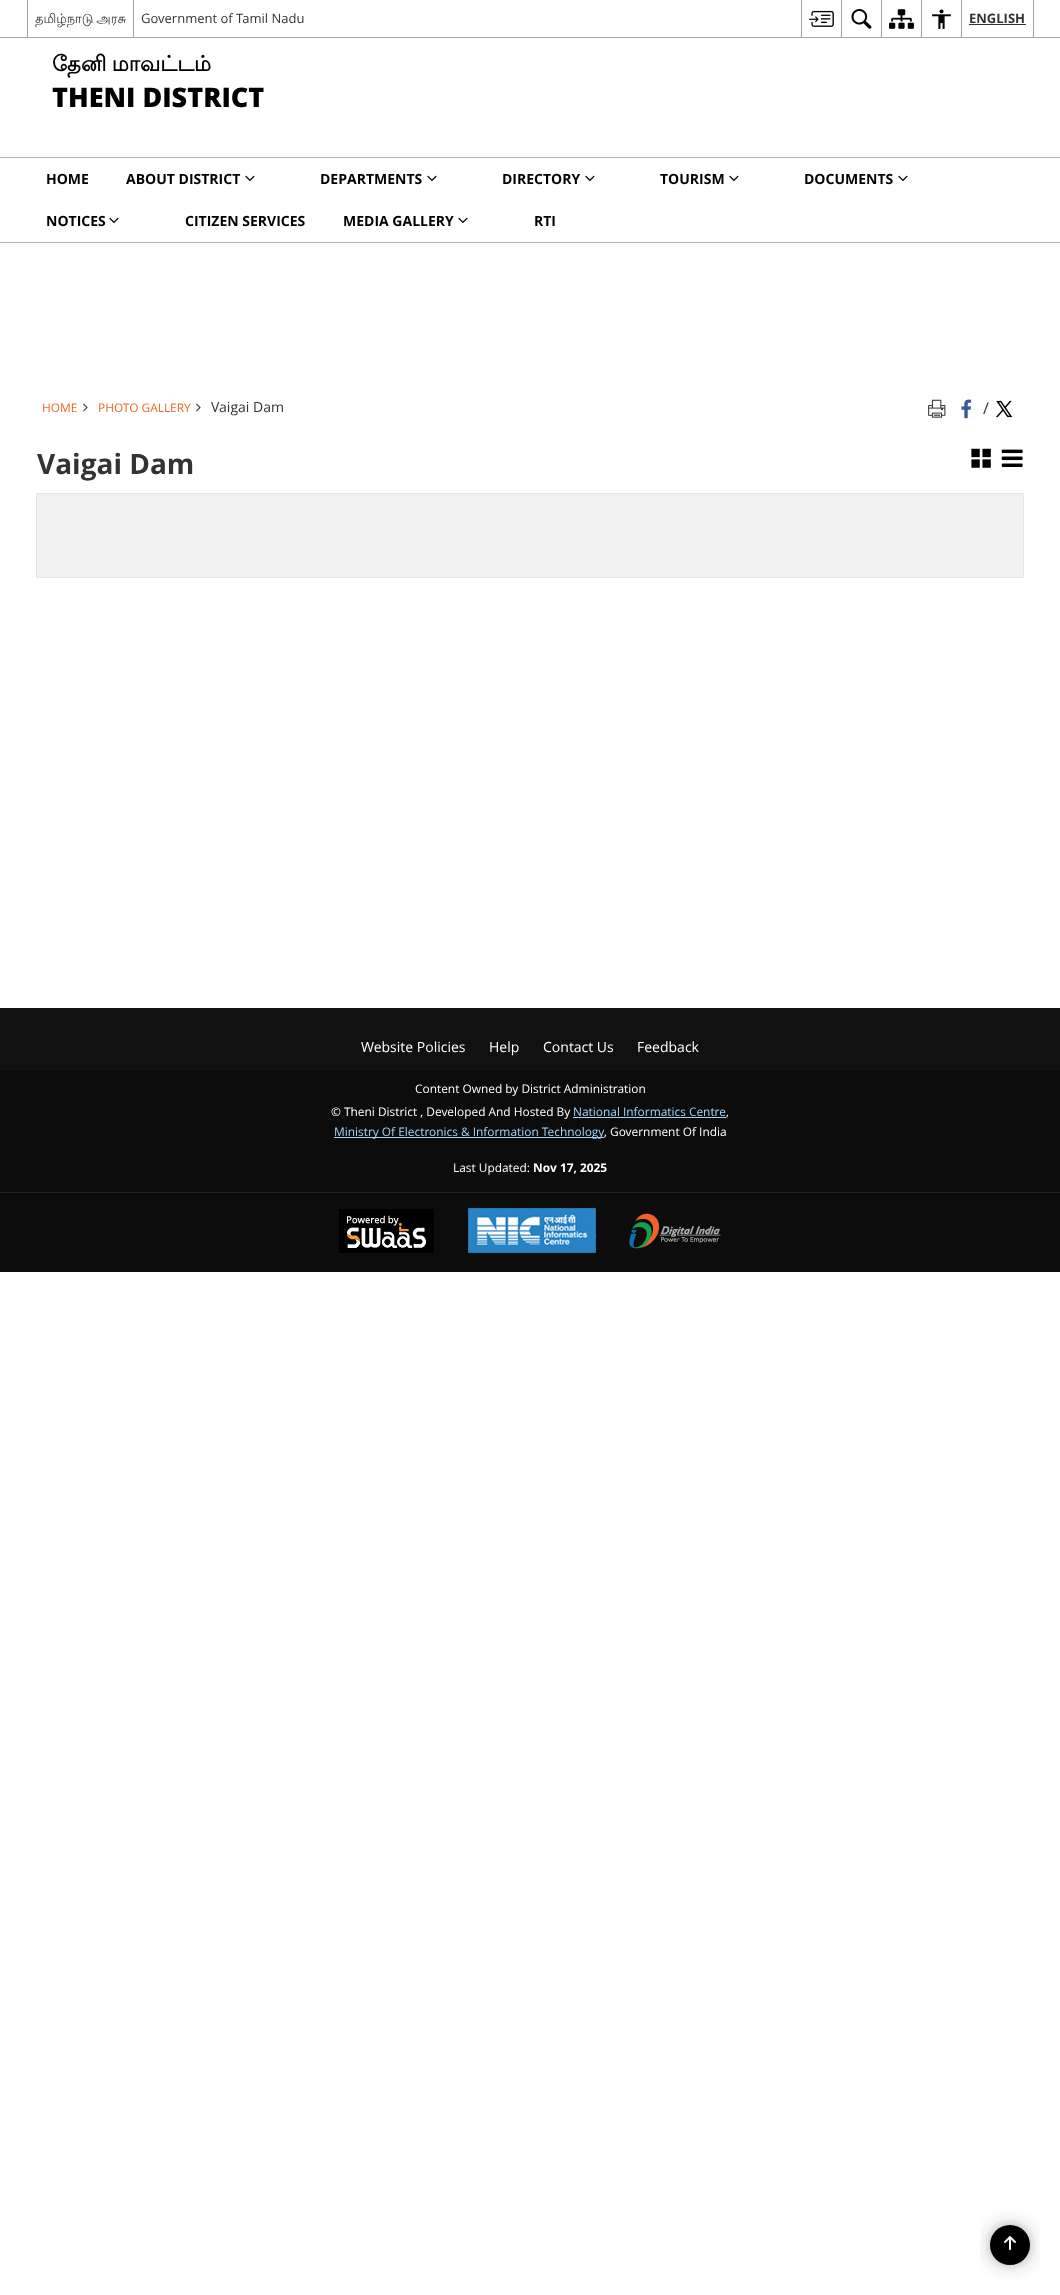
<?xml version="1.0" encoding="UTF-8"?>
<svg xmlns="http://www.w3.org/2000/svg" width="1060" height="2295">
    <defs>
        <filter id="blur1" x="-50%" y="-200%" width="200%" height="500%"><feGaussianBlur stdDeviation="9.5"/></filter>
    </defs>
    <rect width="100%" height="100%" fill="#FFFFFF"/>
    <rect x="0" y="37" width="1060" height="1" fill="#ABABAB"/>
    <rect x="27" y="0" width="1" height="37" fill="#A3A3A3"/>
    <text x="35" y="23" word-spacing="-1" font-family="Lohit Tamil" font-size="13" fill="#333333">தமிழ்நாடு அரசு</text>
    <rect x="133" y="0" width="1" height="37" fill="#A3A3A3"/>
    <text x="141" y="23" font-family="Open Sans" font-size="13" fill="#333333">Government of Tamil Nadu</text>
    <rect x="801" y="0" width="1" height="37" fill="#A3A3A3"/>
    <image x="809" y="10" width="25" height="17" href="img_01.png"/>
    <rect x="841" y="0" width="1" height="37" fill="#A3A3A3"/>
    <image x="851" y="9" width="21" height="20" href="img_02.png"/>
    <rect x="881" y="0" width="1" height="37" fill="#A3A3A3"/>
    <image x="889" y="9" width="25" height="20" href="img_03.png"/>
    <rect x="921" y="0" width="1" height="37" fill="#A3A3A3"/>
    <image x="932" y="9" width="19" height="20" href="img_04.png"/>
    <rect x="1033" y="0" width="1" height="37" fill="#A3A3A3"/>
    <rect x="961" y="0" width="1" height="37" fill="#A3A3A3"/>
    <text x="969" y="23" font-family="Open Sans" font-size="13" font-weight="700" fill="#333333">ENGLISH</text>
    <rect x="969" y="24" width="57" height="1" fill="#333333"/>
    <text x="52" y="71" word-spacing="-1" font-family="Lohit Tamil" font-size="21.25" font-weight="700" fill="#000000">தேனி மாவட்டம்</text>
    <text x="52" y="107" font-family="Open Sans" font-size="27" font-weight="800" fill="#000000">THENI DISTRICT</text>
    <rect x="0" y="157" width="1060" height="1" fill="#B3B3B3"/>
    <rect x="0" y="242" width="1060" height="1" fill="#B3B3B3"/>
    <text x="46" y="184" font-family="Open Sans" font-size="14" font-weight="700" fill="#000000">HOME</text>
    <text x="126" y="184" font-family="Open Sans" font-size="14" font-weight="700" fill="#000000">ABOUT DISTRICT</text>
    <image x="245" y="175" width="10" height="7" href="img_05.png"/>
    <text x="320" y="184" font-family="Open Sans" font-size="14" font-weight="700" fill="#000000">DEPARTMENTS</text>
    <image x="427" y="175" width="10" height="7" href="img_05.png"/>
    <text x="502" y="184" font-family="Open Sans" font-size="14" font-weight="700" fill="#000000">DIRECTORY</text>
    <image x="585" y="175" width="10" height="7" href="img_05.png"/>
    <text x="660" y="184" font-family="Open Sans" font-size="14" font-weight="700" fill="#000000">TOURISM</text>
    <image x="729" y="175" width="10" height="7" href="img_05.png"/>
    <text x="804" y="184" font-family="Open Sans" font-size="14" font-weight="700" fill="#000000">DOCUMENTS</text>
    <image x="898" y="175" width="10" height="7" href="img_05.png"/>
    <text x="46" y="226" font-family="Open Sans" font-size="14" font-weight="700" fill="#000000">NOTICES</text>
    <image x="109" y="217" width="10" height="7" href="img_05.png"/>
    <text x="185" y="226" font-family="Open Sans" font-size="14" font-weight="700" fill="#000000">CITIZEN SERVICES</text>
    <text x="343" y="226" font-family="Open Sans" font-size="14" font-weight="700" fill="#000000">MEDIA GALLERY</text>
    <image x="458" y="217" width="10" height="7" href="img_05.png"/>
    <text x="534" y="226" font-family="Open Sans" font-size="14" font-weight="700" fill="#000000">RTI</text>
    <text x="42" y="412" font-family="Open Sans" font-size="11.9" fill="#F26522">HOME</text>
    <image x="83" y="403" width="5" height="9" href="img_06.png"/>
    <text x="98" y="412" font-family="Open Sans" font-size="11.9" fill="#F26522">PHOTO GALLERY</text>
    <image x="196" y="403" width="5" height="9" href="img_06.png"/>
    <text x="211" y="412" font-family="Open Sans" font-size="14" fill="#333333">Vaigai Dam</text>
    <image x="928" y="399" width="18" height="19" href="img_07.png"/>
    <image x="961" y="399" width="11" height="20" href="img_08.png"/>
    <text x="983" y="414" font-family="Open Sans" font-size="16" fill="#333333">/</text>
    <image x="996" y="400" width="17" height="18" href="img_09.png"/>
    <text x="37" y="474" font-family="Open Sans" font-size="28" font-weight="700" fill="#333333">Vaigai Dam</text>
    <image x="971" y="448" width="20" height="20" href="img_10.png"/>
    <image x="1001" y="449" width="22" height="18" href="img_11.png"/>
    <rect x="36.5" y="493.5" width="987" height="84" fill="none" stroke="#E6E6E6"/>
    <rect x="37" y="494" width="986" height="83" fill="#F1F1F1"/>
    <rect x="0" y="1008" width="1060" height="63" fill="#111111"/>
    <text x="361" y="1052" font-family="Open Sans" font-size="14" fill="#FFFFFF">Website Policies</text>
    <text x="489" y="1052" font-family="Open Sans" font-size="14" fill="#FFFFFF">Help</text>
    <text x="543" y="1052" font-family="Open Sans" font-size="14" fill="#FFFFFF">Contact Us</text>
    <text x="637" y="1052" font-family="Open Sans" font-size="14" fill="#FFFFFF">Feedback</text>
    <rect x="0" y="1071" width="1060" height="201" fill="#0C0C0C"/>
    <text x="415" y="1093" font-family="Open Sans" font-size="11.9" fill="#FFFFFF">Content Owned by District Administration</text>
    <text x="331" y="1116" font-family="Open Sans" font-size="11.9" fill="#FFFFFF">© Theni District , Developed And Hosted By</text>
    <text x="573" y="1116" font-family="Open Sans" font-size="11.9" fill="#A3D2F9">National Informatics Centre</text>
    <rect x="573" y="1117" width="153" height="1" fill="#A3D2F9"/>
    <text x="726" y="1116" font-family="Open Sans" font-size="11.9" fill="#FFFFFF">,</text>
    <rect x="334" y="1137" width="270" height="1" fill="#A3D2F9"/>
    <text x="334" y="1136" font-family="Open Sans" font-size="11.9" fill="#A3D2F9">Ministry Of Electronics &amp; Information Technology</text>
    <text x="604" y="1136" font-family="Open Sans" font-size="11.9" fill="#FFFFFF">, Government Of India</text>
    <text x="453" y="1172" font-family="Open Sans" font-size="11.9" fill="#FFFFFF">Last Updated:</text>
    <text x="533" y="1172" font-family="Open Sans" font-size="11.9" font-weight="700" fill="#FFFFFF">Nov 17, 2025</text>
    <rect x="0" y="1192" width="1060" height="1" fill="#242424"/>
    <image x="339" y="1209" width="95" height="44" href="img_12.png"/>
    <image x="468" y="1208" width="128" height="45" href="img_13.png"/>
    <image x="629" y="1213" width="92" height="36" href="img_14.png"/>
    <rect x="995" y="2230" width="30" height="30" rx="15" fill="#3C3C3C" filter="url(#blur1)"/>
    <circle cx="1010" cy="2245" r="20" fill="#000000"/>
    <image x="1004" y="2236" width="12" height="14" href="img_15.png"/>
</svg>
